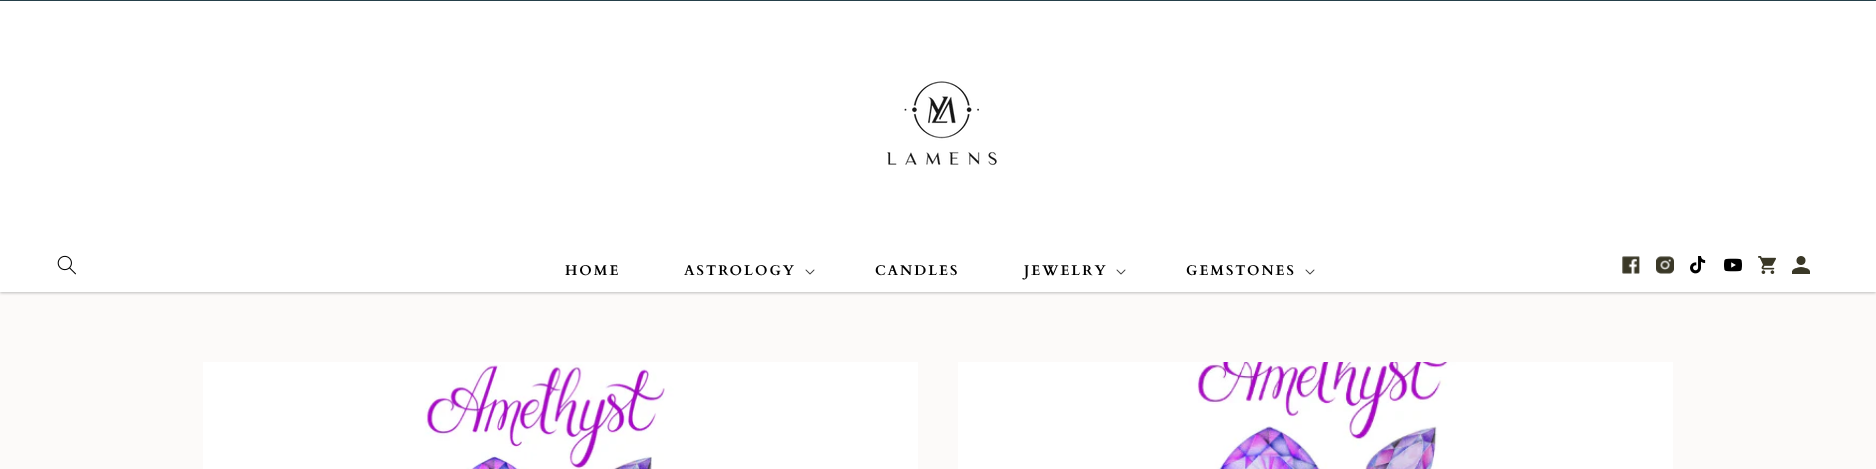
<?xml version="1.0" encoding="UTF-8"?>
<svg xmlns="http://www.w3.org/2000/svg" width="1876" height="469">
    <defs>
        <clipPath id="clip1"><path d="M 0 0 H 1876 V 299 H 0 Z M 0 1 H 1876 V 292 H 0 Z" clip-rule="evenodd"/></clipPath>
        <filter id="blur1" x="-50%" y="-200%" width="200%" height="500%"><feGaussianBlur stdDeviation="1.5"/></filter>
    </defs>
    <rect width="100%" height="100%" fill="#FFFFFF"/>
    <rect x="0" y="0" width="1876" height="1" fill="#27434D"/>
    <rect x="0" y="292" width="1876" height="177" fill="#FCFAF9"/>
    <g clip-path="url(#clip1)">
        <rect x="0" y="2" width="1876" height="291" fill="#000000" fill-opacity="0.25" filter="url(#blur1)"/>
    </g>
    <image x="887" y="81" width="110" height="85" href="img_01.png"/>
    <image x="57" y="255" width="19" height="20" href="img_02.png"/>
    <text x="565" y="275" font-family="Cardo" font-size="14" font-weight="700" letter-spacing="2" fill="#000000">HOME</text>
    <text x="684" y="275" font-family="Cardo" font-size="14" font-weight="700" letter-spacing="2" fill="#000000">ASTROLOGY</text>
    <image x="805" y="269" width="10" height="6" href="img_03.png"/>
    <text x="875" y="275" font-family="Cardo" font-size="14" font-weight="700" letter-spacing="2" fill="#000000">CANDLES</text>
    <text x="1024" y="275" font-family="Cardo" font-size="14" font-weight="700" letter-spacing="2" fill="#000000">JEWELRY</text>
    <image x="1116" y="269" width="10" height="6" href="img_03.png"/>
    <text x="1186" y="275" font-family="Cardo" font-size="14" font-weight="700" letter-spacing="2" fill="#000000">GEMSTONES</text>
    <image x="1305" y="269" width="10" height="6" href="img_03.png"/>
    <image x="1622" y="256" width="18" height="18" href="img_04.png"/>
    <image x="1656" y="256" width="18" height="18" href="img_05.png"/>
    <image x="1690" y="256" width="16" height="18" href="img_06.png"/>
    <image x="1724" y="258" width="18" height="14" href="img_07.png"/>
    <image x="1758" y="256" width="18" height="18" href="img_08.png"/>
    <image x="1792" y="256" width="18" height="18" href="img_09.png"/>
    <image x="203" y="362" width="715" height="107" href="img_10.png"/>
    <image x="958" y="362" width="715" height="107" href="img_11.png"/>
</svg>
